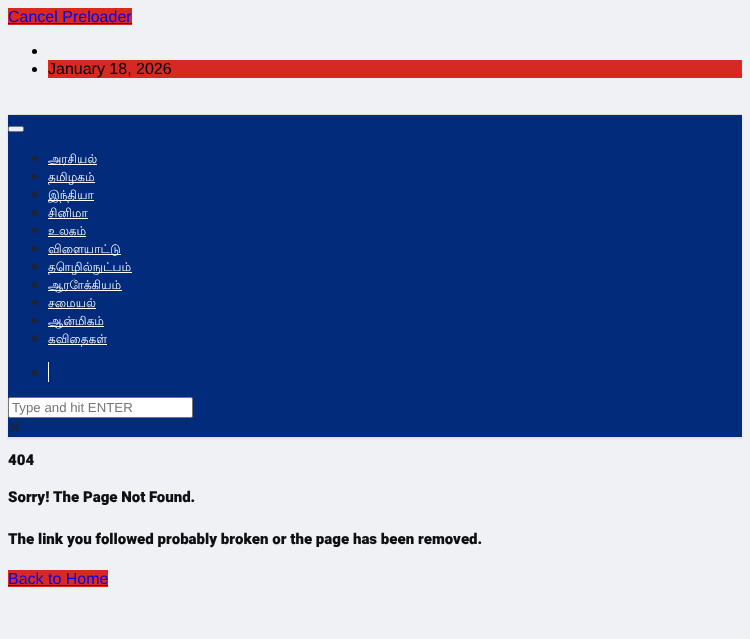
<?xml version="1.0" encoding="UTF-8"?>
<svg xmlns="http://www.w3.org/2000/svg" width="750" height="639">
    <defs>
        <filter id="blur1" x="-50%" y="-200%" width="200%" height="500%"><feGaussianBlur stdDeviation="1"/></filter>
    </defs>
    <rect width="100%" height="100%" fill="#F0F1F4"/>
    <rect x="8" y="8" width="124" height="17" fill="#D72924"/>
    <text x="8" y="22" font-family="Arimo" font-size="16" fill="#0000EE">Cancel Preloader</text>
    <rect x="8" y="23" width="124" height="1" fill="#0000EE"/>
    <circle cx="34.5" cy="51.5" r="2.5" fill="#000000"/>
    <rect x="48" y="60" width="694" height="18" fill="#D72924"/>
    <circle cx="34.5" cy="69.5" r="2.5" fill="#000000"/>
    <text x="48" y="74" font-family="Arimo" font-size="16" fill="#000000">January 18, 2026</text>
    <rect x="8" y="116" width="734" height="323" fill="#000000" fill-opacity="0.08" filter="url(#blur1)"/>
    <rect x="8" y="115" width="734" height="322" fill="#022B7B"/>
    <rect x="8" y="114" width="734" height="1" fill="#DDDDDD"/>
    <rect x="8.5" y="126.5" width="15" height="5" rx="1.5" fill="#EFEFEF" stroke="#767676"/>
    <circle cx="34.5" cy="158.5" r="2.5" fill="#232323"/>
    <rect x="48" y="164" width="49" height="1" fill="#FFFFFF"/>
    <text x="48" y="163" font-family="Lohit Tamil" font-size="12" fill="#FFFFFF">அரசியல்</text>
    <circle cx="34.5" cy="176.5" r="2.5" fill="#232323"/>
    <rect x="48" y="182" width="47" height="1" fill="#FFFFFF"/>
    <text x="48" y="181" font-family="Lohit Tamil" font-size="12" fill="#FFFFFF">தமிழகம்</text>
    <circle cx="34.5" cy="194.5" r="2.5" fill="#232323"/>
    <rect x="48" y="200" width="46" height="1" fill="#FFFFFF"/>
    <text x="48" y="199" font-family="Lohit Tamil" font-size="12" fill="#FFFFFF">இந்தியா</text>
    <circle cx="34.5" cy="212.5" r="2.5" fill="#232323"/>
    <text x="48" y="217" font-family="Lohit Tamil" font-size="12" fill="#FFFFFF">சினிமா</text>
    <rect x="48" y="218" width="40" height="1" fill="#FFFFFF"/>
    <circle cx="34.5" cy="230.5" r="2.5" fill="#232323"/>
    <text x="48" y="235" font-family="Lohit Tamil" font-size="12" fill="#FFFFFF">உலகம்</text>
    <rect x="48" y="236" width="38" height="1" fill="#FFFFFF"/>
    <circle cx="34.5" cy="248.5" r="2.5" fill="#232323"/>
    <rect x="48" y="254" width="73" height="1" fill="#FFFFFF"/>
    <text x="48" y="253" font-family="Lohit Tamil" font-size="12" fill="#FFFFFF">விளையாட்டு</text>
    <circle cx="34.5" cy="266.5" r="2.5" fill="#232323"/>
    <rect x="48" y="272" width="84" height="1" fill="#FFFFFF"/>
    <text x="48" y="271" font-family="Lohit Tamil" font-size="12" fill="#FFFFFF">தொழில்நுட்பம்</text>
    <circle cx="34.5" cy="284.5" r="2.5" fill="#232323"/>
    <rect x="48" y="290" width="74" height="1" fill="#FFFFFF"/>
    <text x="48" y="289" font-family="Lohit Tamil" font-size="12" fill="#FFFFFF">ஆரோக்கியம்</text>
    <circle cx="34.5" cy="302.5" r="2.5" fill="#232323"/>
    <text x="48" y="307" font-family="Lohit Tamil" font-size="12" fill="#FFFFFF">சமையல்</text>
    <rect x="48" y="308" width="48" height="1" fill="#FFFFFF"/>
    <circle cx="34.5" cy="320.5" r="2.5" fill="#232323"/>
    <rect x="48" y="326" width="56" height="1" fill="#FFFFFF"/>
    <text x="48" y="325" font-family="Lohit Tamil" font-size="12" fill="#FFFFFF">ஆன்மிகம்</text>
    <circle cx="34.5" cy="338.5" r="2.5" fill="#232323"/>
    <rect x="48" y="344" width="59" height="1" fill="#FFFFFF"/>
    <text x="48" y="343" font-family="Lohit Tamil" font-size="12" fill="#FFFFFF">கவிதைகள்</text>
    <circle cx="34.5" cy="372.5" r="2.5" fill="#232323"/>
    <rect x="48" y="362" width="1" height="20" fill="#FFFFFF"/>
    <rect x="8.5" y="397.5" width="184" height="20" rx="1.5" fill="#FFFFFF" stroke="#767676"/>
    <text x="12" y="412" font-family="Liberation Sans" font-size="13.25" fill="#757575">Type and hit ENTER</text>
    <text x="8" y="433" font-family="DejaVu Sans" font-size="16" fill="#232323">✕</text>
    <text x="8" y="465" font-family="Heebo" font-size="15" font-weight="900" fill="#101010">404</text>
    <text x="8" y="502" font-family="Heebo" font-size="15" font-weight="900" fill="#101010">Sorry! The Page Not Found.</text>
    <text x="8" y="544" font-family="Heebo" font-size="15" font-weight="900" fill="#101010">The link you followed probably broken or the page has been removed.</text>
    <rect x="8" y="570" width="100" height="17" fill="#D72924"/>
    <text x="8" y="584" font-family="Arimo" font-size="16" fill="#0000EE">Back to Home</text>
    <rect x="8" y="585" width="100" height="1" fill="#0000EE"/>
</svg>
